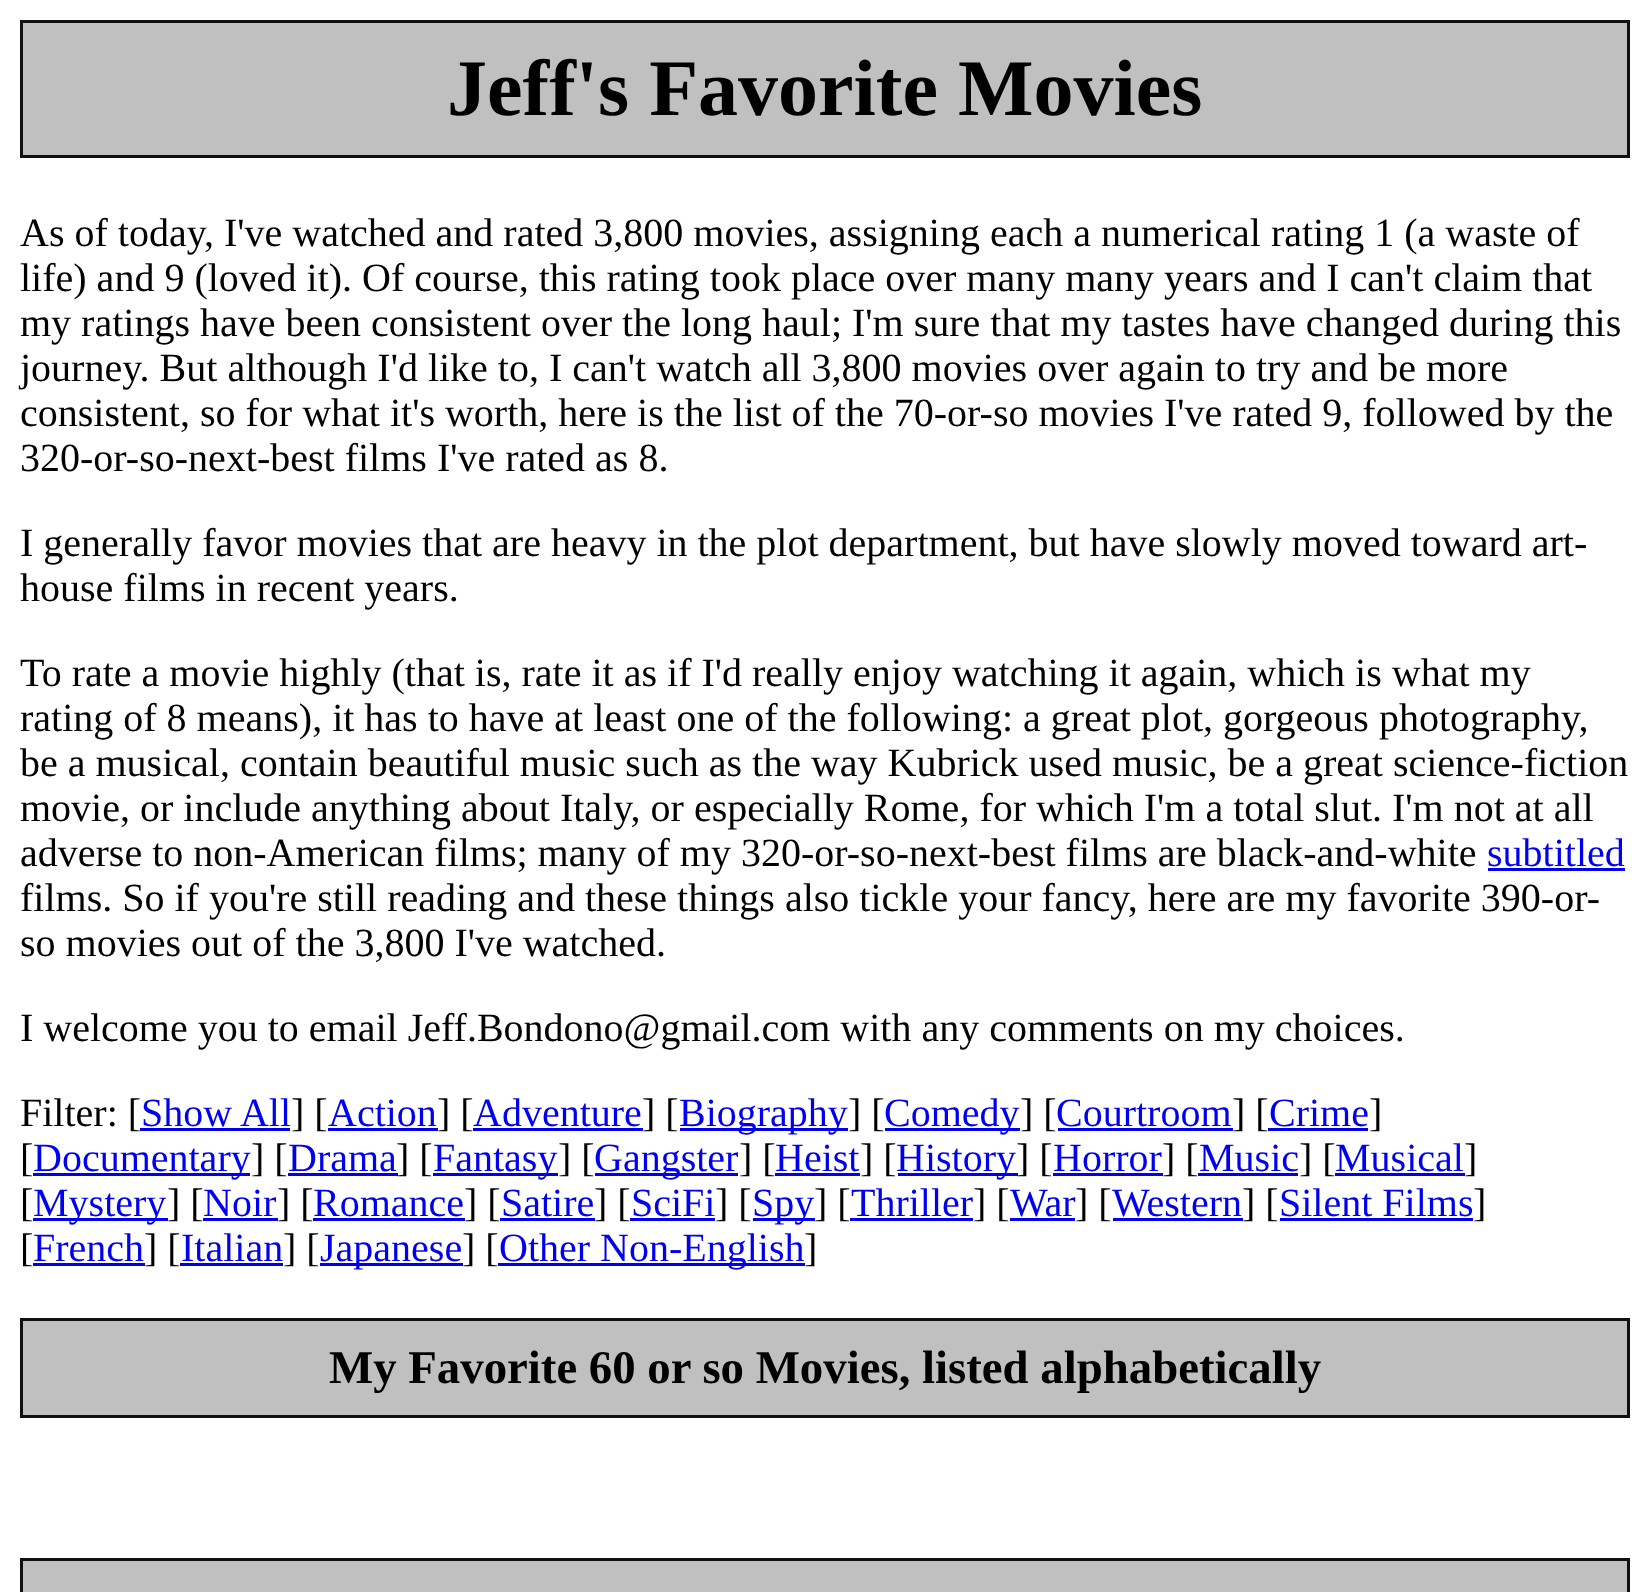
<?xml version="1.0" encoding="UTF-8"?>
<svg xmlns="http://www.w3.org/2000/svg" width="1650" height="1592">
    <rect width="100%" height="100%" fill="#FFFFFF"/>
    <rect x="21.5" y="21.5" width="1607" height="135" fill="#C0C0C0" stroke="#101010" stroke-width="3"/>
    <text x="447" y="115" font-family="Liberation Serif" font-size="80" font-weight="700" fill="#000000">Jeff's Favorite Movies</text>
    <text font-family="Liberation Serif" font-size="40" fill="#000000">
        <tspan x="20" y="246">As of today, I've watched and rated 3,800 movies, assigning each a numerical rating 1 (a waste of</tspan>
        <tspan x="20" y="291">life) and 9 (loved it). Of course, this rating took place over many many years and I can't claim that</tspan>
        <tspan x="20" y="336">my ratings have been consistent over the long haul; I'm sure that my tastes have changed during this</tspan>
        <tspan x="20" y="381">journey. But although I'd like to, I can't watch all 3,800 movies over again to try and be more</tspan>
        <tspan x="20" y="426">consistent, so for what it's worth, here is the list of the 70-or-so movies I've rated 9, followed by the</tspan>
        <tspan x="20" y="471">320-or-so-next-best films I've rated as 8.</tspan>
    </text>
    <text font-family="Liberation Serif" font-size="40" fill="#000000">
        <tspan x="20" y="556">I generally favor movies that are heavy in the plot department, but have slowly moved toward art-</tspan>
        <tspan x="20" y="601">house films in recent years.</tspan>
    </text>
    <text font-family="Liberation Serif" font-size="40" fill="#000000">
        <tspan x="20" y="686">To rate a movie highly (that is, rate it as if I'd really enjoy watching it again, which is what my</tspan>
        <tspan x="20" y="731">rating of 8 means), it has to have at least one of the following: a great plot, gorgeous photography,</tspan>
        <tspan x="20" y="776">be a musical, contain beautiful music such as the way Kubrick used music, be a great science-fiction</tspan>
        <tspan x="20" y="821">movie, or include anything about Italy, or especially Rome, for which I'm a total slut. I'm not at all</tspan>
        <tspan x="20" y="866">adverse to non-American films; many of my 320-or-so-next-best films are black-and-white</tspan>
    </text>
    <text x="1487" y="866" font-family="Liberation Serif" font-size="40" fill="#0000EE">subtitled</text>
    <rect x="1488" y="868" width="137" height="3" fill="#0000EE"/>
    <text font-family="Liberation Serif" font-size="40" fill="#000000">
        <tspan x="20" y="911">films. So if you're still reading and these things also tickle your fancy, here are my favorite 390-or-</tspan>
        <tspan x="20" y="956">so movies out of the 3,800 I've watched.</tspan>
    </text>
    <text x="20" y="1041" font-family="Liberation Serif" font-size="40" fill="#000000">I welcome you to email Jeff.Bondono@gmail.com with any comments on my choices.</text>
    <text x="20" y="1126" font-family="Liberation Serif" font-size="40" fill="#000000">Filter: [</text>
    <text x="141" y="1126" font-family="Liberation Serif" font-size="40" fill="#0000EE">Show All</text>
    <rect x="140" y="1128" width="150" height="3" fill="#0000EE"/>
    <text x="291" y="1126" font-family="Liberation Serif" font-size="40" fill="#000000">] [</text>
    <text x="328" y="1126" font-family="Liberation Serif" font-size="40" fill="#0000EE">Action</text>
    <rect x="328" y="1128" width="110" height="3" fill="#0000EE"/>
    <text x="437" y="1126" font-family="Liberation Serif" font-size="40" fill="#000000">] [</text>
    <text x="473" y="1126" font-family="Liberation Serif" font-size="40" fill="#0000EE">Adventure</text>
    <rect x="473" y="1128" width="170" height="3" fill="#0000EE"/>
    <text x="642" y="1126" font-family="Liberation Serif" font-size="40" fill="#000000">] [</text>
    <rect x="680" y="1128" width="168" height="3" fill="#0000EE"/>
    <text x="679" y="1126" font-family="Liberation Serif" font-size="40" fill="#0000EE">Biography</text>
    <text x="848" y="1126" font-family="Liberation Serif" font-size="40" fill="#000000">] [</text>
    <rect x="885" y="1128" width="135" height="3" fill="#0000EE"/>
    <text x="884" y="1126" font-family="Liberation Serif" font-size="40" fill="#0000EE">Comedy</text>
    <text x="1020" y="1126" font-family="Liberation Serif" font-size="40" fill="#000000">] [</text>
    <text x="1056" y="1126" font-family="Liberation Serif" font-size="40" fill="#0000EE">Courtroom</text>
    <rect x="1058" y="1128" width="175" height="3" fill="#0000EE"/>
    <text x="1232" y="1126" font-family="Liberation Serif" font-size="40" fill="#000000">] [</text>
    <text x="1269" y="1126" font-family="Liberation Serif" font-size="40" fill="#0000EE">Crime</text>
    <rect x="1268" y="1128" width="100" height="3" fill="#0000EE"/>
    <text x="1369" y="1126" font-family="Liberation Serif" font-size="40" fill="#000000">]</text>
    <text x="20" y="1171" font-family="Liberation Serif" font-size="40" fill="#000000">[</text>
    <rect x="33" y="1173" width="217" height="3" fill="#0000EE"/>
    <text x="33" y="1171" font-family="Liberation Serif" font-size="40" fill="#0000EE">Documentary</text>
    <text x="251" y="1171" font-family="Liberation Serif" font-size="40" fill="#000000">] [</text>
    <text x="288" y="1171" font-family="Liberation Serif" font-size="40" fill="#0000EE">Drama</text>
    <rect x="288" y="1173" width="110" height="3" fill="#0000EE"/>
    <text x="396" y="1171" font-family="Liberation Serif" font-size="40" fill="#000000">] [</text>
    <rect x="433" y="1173" width="125" height="3" fill="#0000EE"/>
    <text x="433" y="1171" font-family="Liberation Serif" font-size="40" fill="#0000EE">Fantasy</text>
    <text x="558" y="1171" font-family="Liberation Serif" font-size="40" fill="#000000">] [</text>
    <rect x="595" y="1173" width="143" height="3" fill="#0000EE"/>
    <text x="594" y="1171" font-family="Liberation Serif" font-size="40" fill="#0000EE">Gangster</text>
    <text x="739" y="1171" font-family="Liberation Serif" font-size="40" fill="#000000">] [</text>
    <text x="775" y="1171" font-family="Liberation Serif" font-size="40" fill="#0000EE">Heist</text>
    <rect x="775" y="1173" width="85" height="3" fill="#0000EE"/>
    <text x="860" y="1171" font-family="Liberation Serif" font-size="40" fill="#000000">] [</text>
    <rect x="898" y="1173" width="120" height="3" fill="#0000EE"/>
    <text x="896" y="1171" font-family="Liberation Serif" font-size="40" fill="#0000EE">History</text>
    <text x="1016" y="1171" font-family="Liberation Serif" font-size="40" fill="#000000">] [</text>
    <text x="1053" y="1171" font-family="Liberation Serif" font-size="40" fill="#0000EE">Horror</text>
    <rect x="1053" y="1173" width="110" height="3" fill="#0000EE"/>
    <text x="1162" y="1171" font-family="Liberation Serif" font-size="40" fill="#000000">] [</text>
    <text x="1199" y="1171" font-family="Liberation Serif" font-size="40" fill="#0000EE">Music</text>
    <rect x="1198" y="1173" width="100" height="3" fill="#0000EE"/>
    <text x="1299" y="1171" font-family="Liberation Serif" font-size="40" fill="#000000">] [</text>
    <text x="1335" y="1171" font-family="Liberation Serif" font-size="40" fill="#0000EE">Musical</text>
    <rect x="1335" y="1173" width="130" height="3" fill="#0000EE"/>
    <text x="1464" y="1171" font-family="Liberation Serif" font-size="40" fill="#000000">]</text>
    <text x="20" y="1216" font-family="Liberation Serif" font-size="40" fill="#000000">[</text>
    <rect x="33" y="1218" width="135" height="3" fill="#0000EE"/>
    <text x="33" y="1216" font-family="Liberation Serif" font-size="40" fill="#0000EE">Mystery</text>
    <text x="167" y="1216" font-family="Liberation Serif" font-size="40" fill="#000000">] [</text>
    <text x="203" y="1216" font-family="Liberation Serif" font-size="40" fill="#0000EE">Noir</text>
    <rect x="203" y="1218" width="75" height="3" fill="#0000EE"/>
    <text x="277" y="1216" font-family="Liberation Serif" font-size="40" fill="#000000">] [</text>
    <text x="313" y="1216" font-family="Liberation Serif" font-size="40" fill="#0000EE">Romance</text>
    <rect x="313" y="1218" width="152" height="3" fill="#0000EE"/>
    <text x="464" y="1216" font-family="Liberation Serif" font-size="40" fill="#000000">] [</text>
    <text x="501" y="1216" font-family="Liberation Serif" font-size="40" fill="#0000EE">Satire</text>
    <rect x="500" y="1218" width="95" height="3" fill="#0000EE"/>
    <text x="594" y="1216" font-family="Liberation Serif" font-size="40" fill="#000000">] [</text>
    <text x="631" y="1216" font-family="Liberation Serif" font-size="40" fill="#0000EE">SciFi</text>
    <rect x="630" y="1218" width="85" height="3" fill="#0000EE"/>
    <text x="715" y="1216" font-family="Liberation Serif" font-size="40" fill="#000000">] [</text>
    <rect x="753" y="1218" width="62" height="3" fill="#0000EE"/>
    <text x="752" y="1216" font-family="Liberation Serif" font-size="40" fill="#0000EE">Spy</text>
    <text x="814" y="1216" font-family="Liberation Serif" font-size="40" fill="#000000">] [</text>
    <text x="851" y="1216" font-family="Liberation Serif" font-size="40" fill="#0000EE">Thriller</text>
    <rect x="850" y="1218" width="123" height="3" fill="#0000EE"/>
    <text x="973" y="1216" font-family="Liberation Serif" font-size="40" fill="#000000">] [</text>
    <text x="1010" y="1216" font-family="Liberation Serif" font-size="40" fill="#0000EE">War</text>
    <rect x="1010" y="1218" width="65" height="3" fill="#0000EE"/>
    <text x="1075" y="1216" font-family="Liberation Serif" font-size="40" fill="#000000">] [</text>
    <text x="1112" y="1216" font-family="Liberation Serif" font-size="40" fill="#0000EE">Western</text>
    <rect x="1113" y="1218" width="130" height="3" fill="#0000EE"/>
    <text x="1242" y="1216" font-family="Liberation Serif" font-size="40" fill="#000000">] [</text>
    <text x="1279" y="1216" font-family="Liberation Serif" font-size="40" fill="#0000EE">Silent Films</text>
    <rect x="1280" y="1218" width="193" height="3" fill="#0000EE"/>
    <text x="1473" y="1216" font-family="Liberation Serif" font-size="40" fill="#000000">]</text>
    <text x="20" y="1261" font-family="Liberation Serif" font-size="40" fill="#000000">[</text>
    <text x="33" y="1261" font-family="Liberation Serif" font-size="40" fill="#0000EE">French</text>
    <rect x="33" y="1263" width="112" height="3" fill="#0000EE"/>
    <text x="144" y="1261" font-family="Liberation Serif" font-size="40" fill="#000000">] [</text>
    <text x="181" y="1261" font-family="Liberation Serif" font-size="40" fill="#0000EE">Italian</text>
    <rect x="180" y="1263" width="103" height="3" fill="#0000EE"/>
    <text x="283" y="1261" font-family="Liberation Serif" font-size="40" fill="#000000">] [</text>
    <rect x="320" y="1263" width="143" height="3" fill="#0000EE"/>
    <text x="320" y="1261" font-family="Liberation Serif" font-size="40" fill="#0000EE">Japanese</text>
    <text x="462" y="1261" font-family="Liberation Serif" font-size="40" fill="#000000">] [</text>
    <rect x="498" y="1263" width="307" height="3" fill="#0000EE"/>
    <text x="499" y="1261" font-family="Liberation Serif" font-size="40" fill="#0000EE">Other Non-English</text>
    <text x="804" y="1261" font-family="Liberation Serif" font-size="40" fill="#000000">]</text>
    <rect x="21.5" y="1319.5" width="1607" height="97" fill="#C0C0C0" stroke="#101010" stroke-width="3"/>
    <text x="329" y="1383" font-family="Liberation Serif" font-size="46.8" font-weight="700" fill="#000000">My Favorite 60 or so Movies, listed alphabetically</text>
    <rect x="21.5" y="1559.5" width="1607" height="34" fill="#C0C0C0" stroke="#101010" stroke-width="3"/>
</svg>
